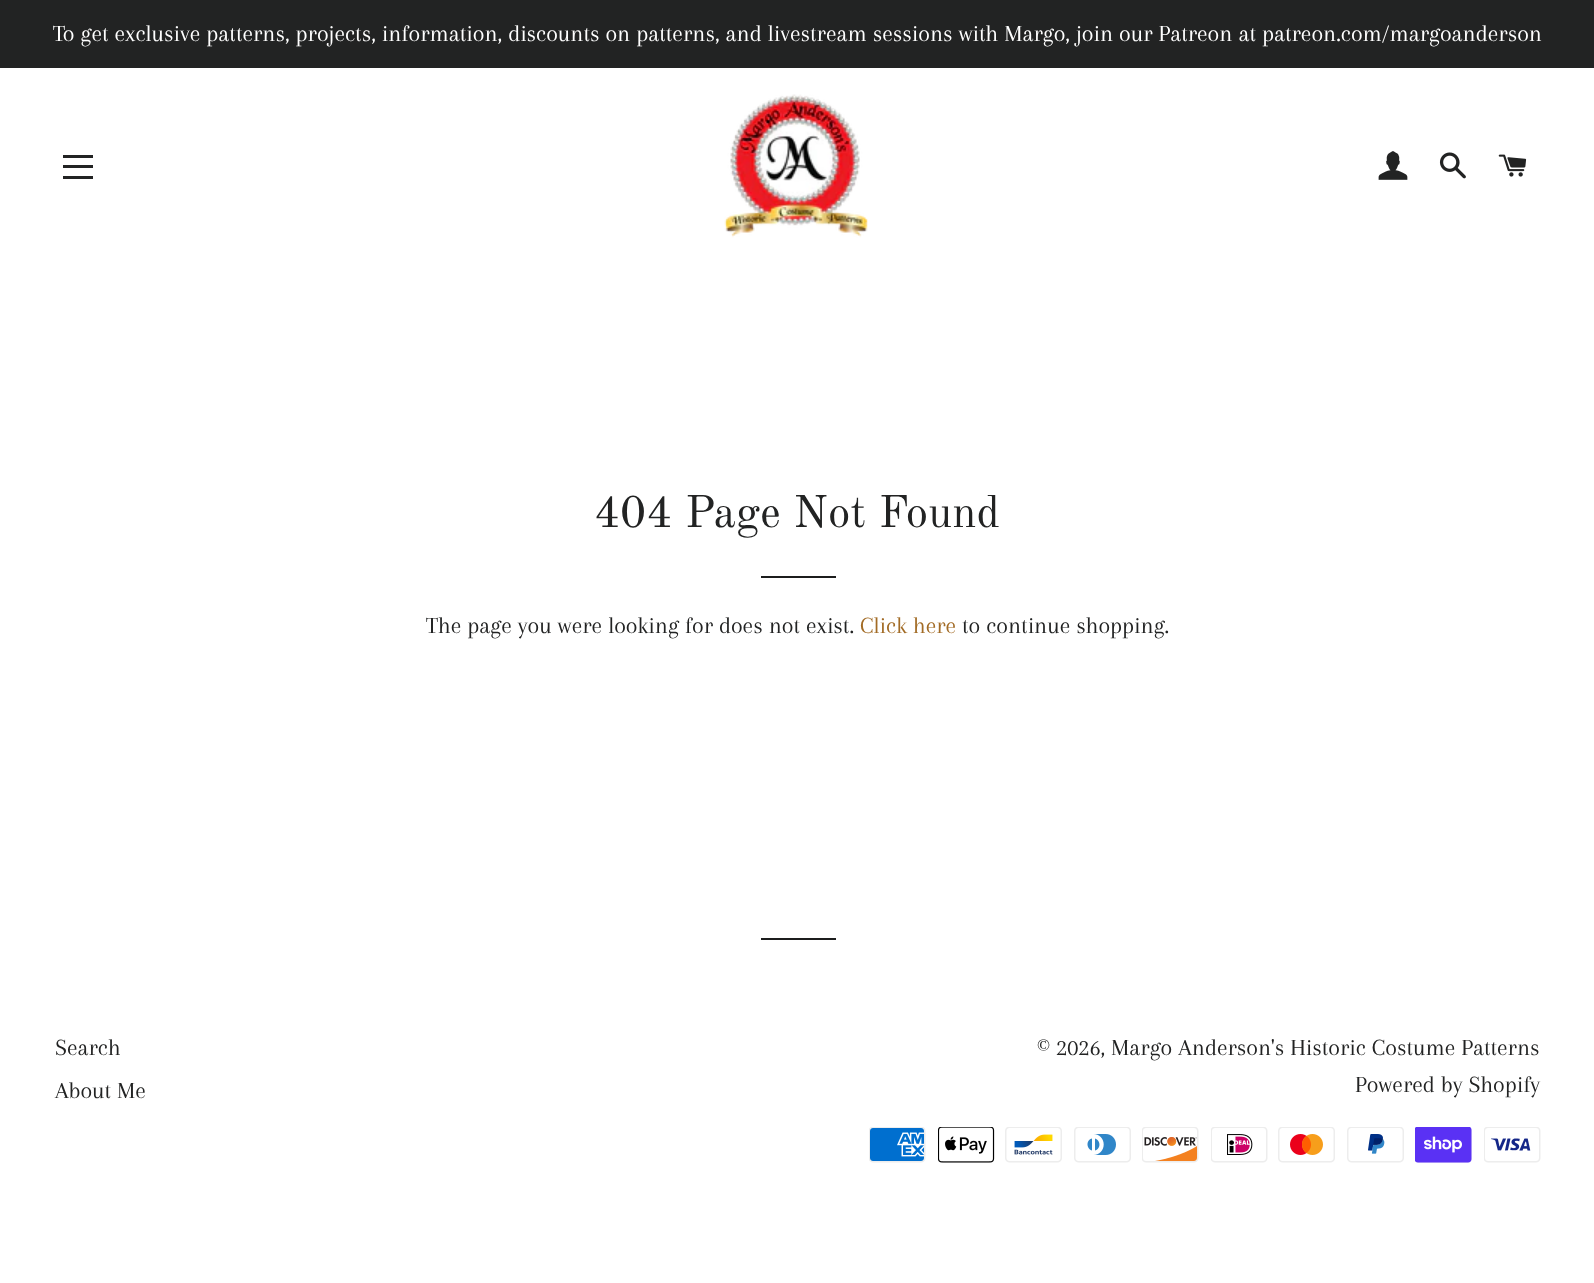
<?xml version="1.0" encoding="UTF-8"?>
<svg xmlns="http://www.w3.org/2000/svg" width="1594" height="1283">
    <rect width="100%" height="100%" fill="#FFFFFF"/>
    <rect x="0" y="0" width="1594" height="68" fill="#222323"/>
    <text x="53" y="41" font-family="Arapey" font-size="24" fill="#FFFFFF">To get exclusive patterns, projects, information, discounts on patterns, and livestream sessions with Margo, join our Patreon at patreon.com/margoanderson</text>
    <rect x="63" y="155" width="30" height="3" fill="#222323"/>
    <rect x="63" y="165" width="30" height="3" fill="#222323"/>
    <rect x="63" y="176" width="30" height="3" fill="#222323"/>
    <image x="724" y="94" width="144" height="144" href="img_01.png"/>
    <image x="1378" y="151" width="30" height="29" href="img_02.png"/>
    <image x="1439" y="152" width="27" height="27" href="img_03.png"/>
    <image x="1498" y="154" width="29" height="23" href="img_04.png"/>
    <text x="594" y="527" font-family="Old Standard TT" font-size="45" fill="#222323">404 Page Not Found</text>
    <rect x="761" y="576" width="75" height="2" fill="#1C1D1D"/>
    <text x="426" y="633" font-family="Arapey" font-size="24" fill="#222323">The page you were looking for does not exist.</text>
    <text x="860" y="633" font-family="Arapey" font-size="24" fill="#A26B25">Click here</text>
    <text x="962" y="633" font-family="Arapey" font-size="24" fill="#222323">to continue shopping.</text>
    <rect x="761" y="938" width="75" height="2" fill="#1C1D1D"/>
    <text font-family="Arapey" font-size="24" fill="#222323">
        <tspan x="55" y="1055">Search</tspan>
        <tspan x="55" y="1098">About Me</tspan>
    </text>
    <text x="1037" y="1055" font-family="Arapey" font-size="24" fill="#222323">© 2026, Margo Anderson's Historic Costume Patterns</text>
    <text x="1355" y="1092" font-family="Arapey" font-size="24" fill="#222323">Powered by Shopify</text>
    <image x="869" y="1127" width="57" height="36" href="img_05.png"/>
    <image x="938" y="1127" width="57" height="36" href="img_06.png"/>
    <image x="1005" y="1127" width="57" height="36" href="img_07.png"/>
    <image x="1074" y="1127" width="57" height="36" href="img_08.png"/>
    <image x="1142" y="1127" width="57" height="36" href="img_09.png"/>
    <image x="1211" y="1127" width="57" height="36" href="img_10.png"/>
    <image x="1278" y="1127" width="57" height="36" href="img_11.png"/>
    <image x="1347" y="1127" width="57" height="36" href="img_12.png"/>
    <image x="1415" y="1127" width="57" height="36" href="img_13.png"/>
    <image x="1484" y="1127" width="57" height="36" href="img_14.png"/>
</svg>
